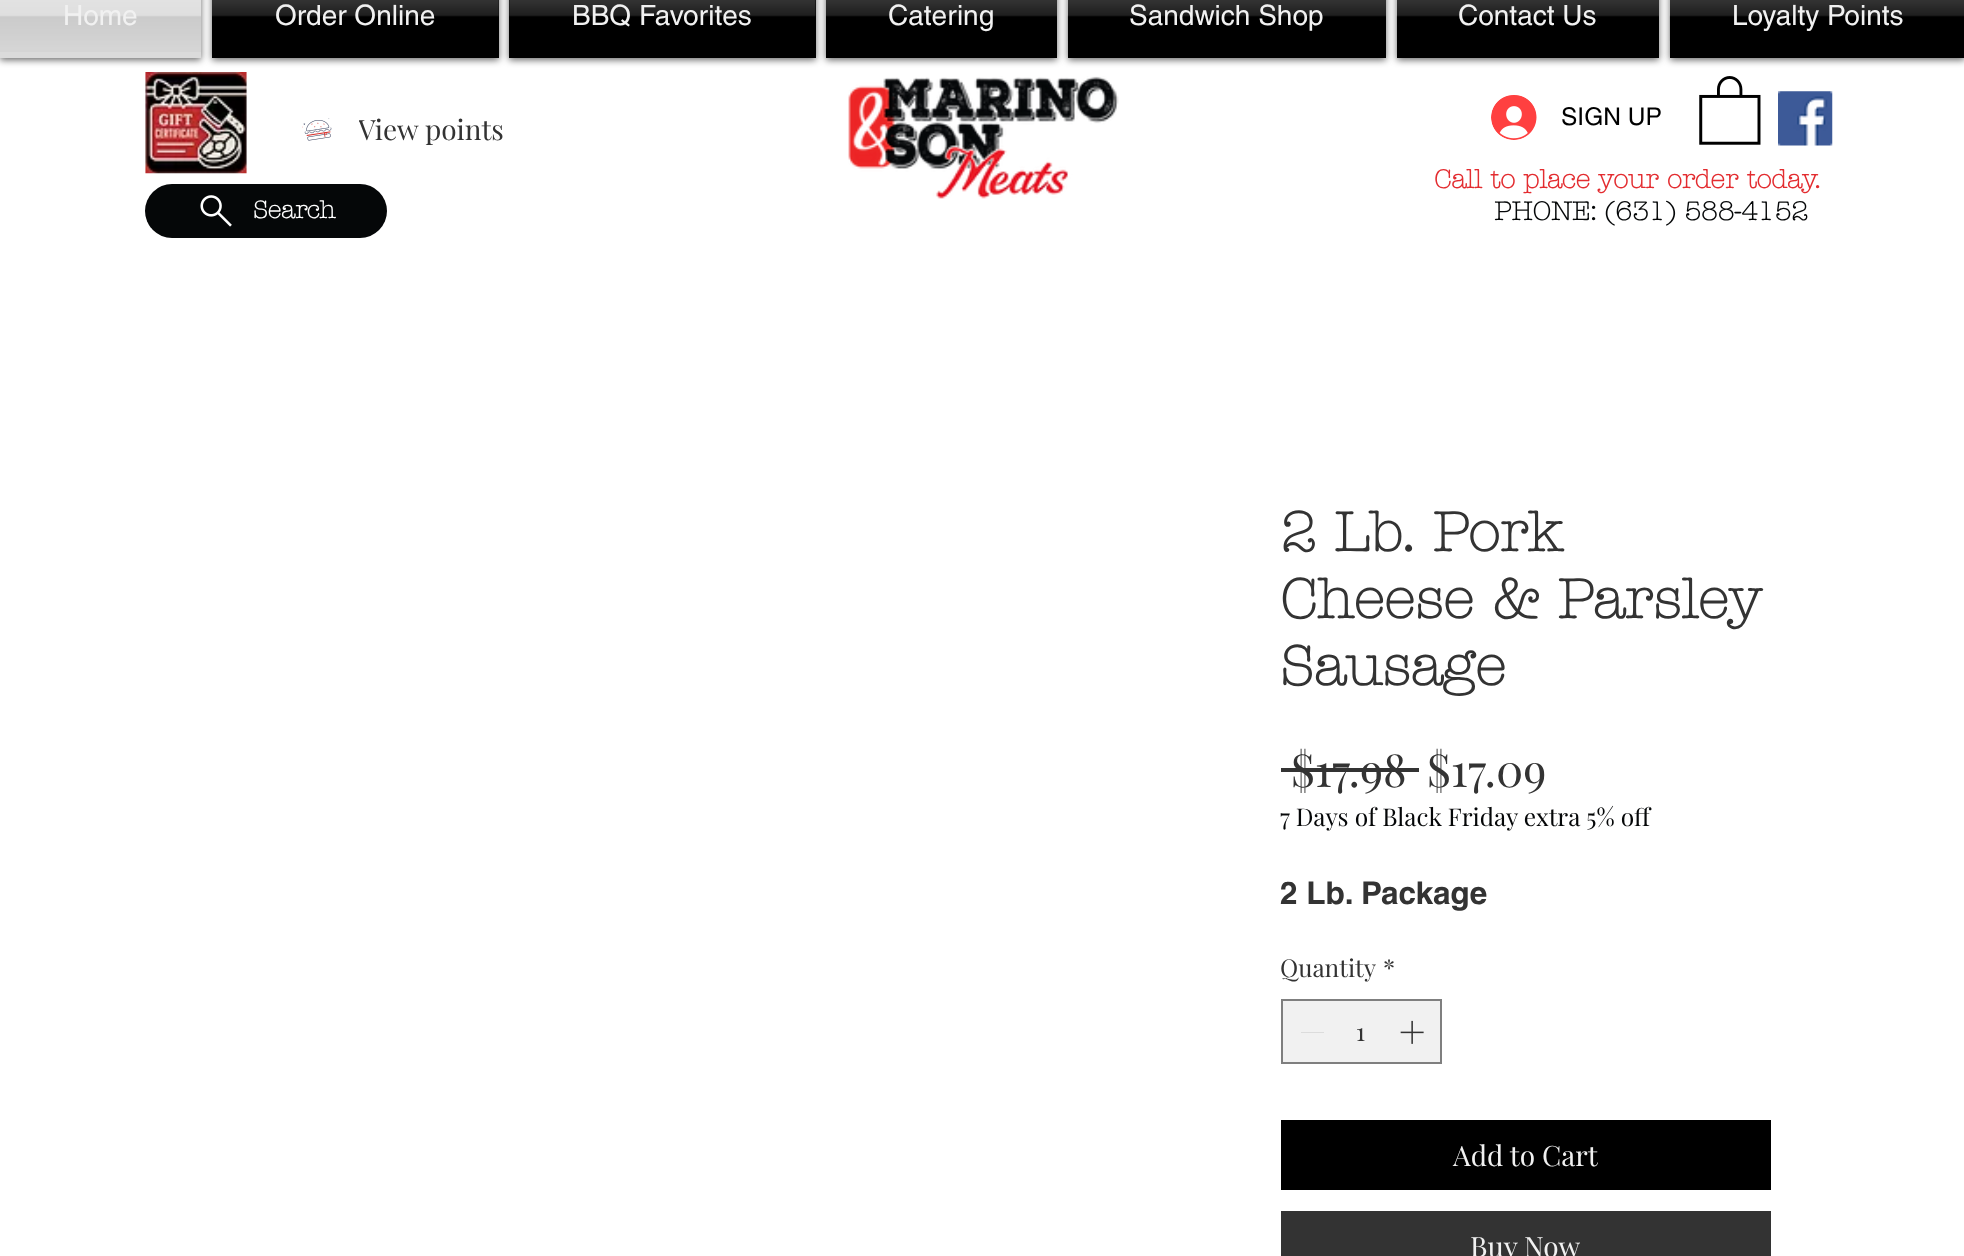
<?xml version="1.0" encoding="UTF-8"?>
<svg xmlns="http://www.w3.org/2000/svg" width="1964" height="1256">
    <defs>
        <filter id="blur1" x="-50%" y="-200%" width="200%" height="500%"><feGaussianBlur stdDeviation="3.5"/></filter>
        <clipPath id="clip1"><rect x="359" y="110" width="145" height="39"/></clipPath>
    </defs>
    <rect width="100%" height="100%" fill="#FFFFFF"/>
    <rect x="0" y="-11" width="201" height="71" fill="#000000" fill-opacity="0.6" filter="url(#blur1)"/>
    <rect x="0" y="0" width="201" height="58" fill="#DBDBDB"/>
    <image x="0" y="0" width="201" height="52" href="img_01.png"/>
    <text x="63" y="25" font-family="helvetica" font-size="28" fill="#F1F1F1">Home</text>
    <rect x="212" y="-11" width="287" height="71" fill="#000000" fill-opacity="0.6" filter="url(#blur1)"/>
    <rect x="212" y="0" width="287" height="58" fill="#000000"/>
    <image x="212" y="0" width="287" height="17" href="img_02.png"/>
    <text x="275" y="25" font-family="helvetica" font-size="28" fill="#F1F1F1">Order Online</text>
    <rect x="509" y="-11" width="307" height="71" fill="#000000" fill-opacity="0.6" filter="url(#blur1)"/>
    <rect x="509" y="0" width="307" height="58" fill="#000000"/>
    <image x="509" y="0" width="307" height="17" href="img_03.png"/>
    <text x="572" y="25" font-family="helvetica" font-size="28" fill="#F1F1F1">BBQ Favorites</text>
    <rect x="826" y="-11" width="231" height="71" fill="#000000" fill-opacity="0.6" filter="url(#blur1)"/>
    <rect x="826" y="0" width="231" height="58" fill="#000000"/>
    <image x="826" y="0" width="231" height="17" href="img_04.png"/>
    <text x="888" y="25" font-family="helvetica" font-size="28" fill="#F1F1F1">Catering</text>
    <rect x="1068" y="-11" width="318" height="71" fill="#000000" fill-opacity="0.6" filter="url(#blur1)"/>
    <rect x="1068" y="0" width="318" height="58" fill="#000000"/>
    <image x="1067" y="0" width="319" height="41" href="img_05.png"/>
    <text x="1129" y="25" font-family="helvetica" font-size="28" fill="#F1F1F1">Sandwich Shop</text>
    <rect x="1397" y="-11" width="262" height="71" fill="#000000" fill-opacity="0.6" filter="url(#blur1)"/>
    <rect x="1397" y="0" width="262" height="58" fill="#000000"/>
    <image x="1396" y="0" width="263" height="41" href="img_06.png"/>
    <text x="1458" y="25" font-family="helvetica" font-size="28" fill="#F1F1F1">Contact Us</text>
    <rect x="1670" y="-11" width="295" height="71" fill="#000000" fill-opacity="0.6" filter="url(#blur1)"/>
    <rect x="1670" y="0" width="294" height="58" fill="#000000"/>
    <image x="1669" y="0" width="295" height="41" href="img_07.png"/>
    <text x="1732" y="25" font-family="helvetica" font-size="28" fill="#F1F1F1">Loyalty Points</text>
    <image x="145" y="72" width="102" height="102" href="img_08.png"/>
    <image x="848" y="76" width="271" height="123" href="img_09.png"/>
    <image x="1491" y="95" width="46" height="45" href="img_10.png"/>
    <text x="1561" y="125" font-family="helvetica" font-size="24.5" fill="#000000">SIGN UP</text>
    <image x="1699" y="76" width="62" height="69" href="img_11.png"/>
    <image x="1778" y="91" width="55" height="55" href="img_12.png"/>
    <image x="302" y="118" width="30" height="23" href="img_13.png"/>
    <g clip-path="url(#clip1)">
        <text x="358" y="140" font-family="Playfair Display" font-size="28" fill="#333333">View points</text>
    </g>
    <text x="1434" y="188" font-family="'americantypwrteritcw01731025'" font-size="26.25" font-weight="700" fill="#E32C30">Call to place your order today.</text>
    <rect x="145" y="184" width="242" height="54" rx="27" fill="#050708"/>
    <image x="200" y="195" width="32" height="32" href="img_14.png"/>
    <text x="253" y="218" font-family="'americantypwrteritcw01731025'" font-size="24.5" font-weight="700" fill="#FFFFFF">Search</text>
    <text x="1494" y="220" font-family="'americantypwrteritcw01731025'" font-size="26.25" font-weight="700" fill="#050708">PHONE: (631) 588-4152</text>
    <text font-family="'americantypwrteritcw01731025'" font-size="56" font-weight="700" fill="#333333">
        <tspan x="1280" y="551">2 Lb. Pork</tspan>
        <tspan x="1280" y="618">Cheese &amp; Parsley</tspan>
        <tspan x="1280" y="685">Sausage</tspan>
    </text>
    <text x="1291" y="787" font-family="Playfair Display" font-size="45.5" fill="#333333">$17.98</text>
    <rect x="1281" y="768" width="138" height="4" fill="#333333"/>
    <text x="1427" y="787" font-family="Playfair Display" font-size="45.5" fill="#333333">$17.09</text>
    <text x="1280" y="826" font-family="Playfair Display" font-size="24.5" fill="#050708">7 Days of Black Friday extra 5% off</text>
    <text x="1280" y="904" font-family="helvetica" font-size="31.5" font-weight="700" fill="#333333">2 Lb. Package</text>
    <text x="1280" y="977" font-family="Playfair Display" font-size="24.5" fill="#333333">Quantity</text>
    <text x="1383" y="977" font-family="Playfair Display" font-size="24.5" fill="#333333">*</text>
    <rect x="1282" y="1000" width="159" height="63" fill="#F1F1F1" stroke="#7F7F7F" stroke-width="2"/>
    <rect x="1301" y="1032" width="23" height="1" fill="#DCDCDC"/>
    <text x="1356" y="1041" font-family="Playfair Display" font-size="24.5" fill="#333333">1</text>
    <image x="1400" y="1020" width="24" height="24" href="img_15.png"/>
    <rect x="1281" y="1120" width="490" height="70" fill="#000000"/>
    <text x="1453" y="1166" font-family="Playfair Display" font-size="28" fill="#F1F1F1">Add to Cart</text>
    <rect x="1281" y="1211" width="490" height="45" fill="#333333"/>
    <text x="1470" y="1257" font-family="Playfair Display" font-size="28" fill="#F1F1F1">Buy Now</text>
</svg>
